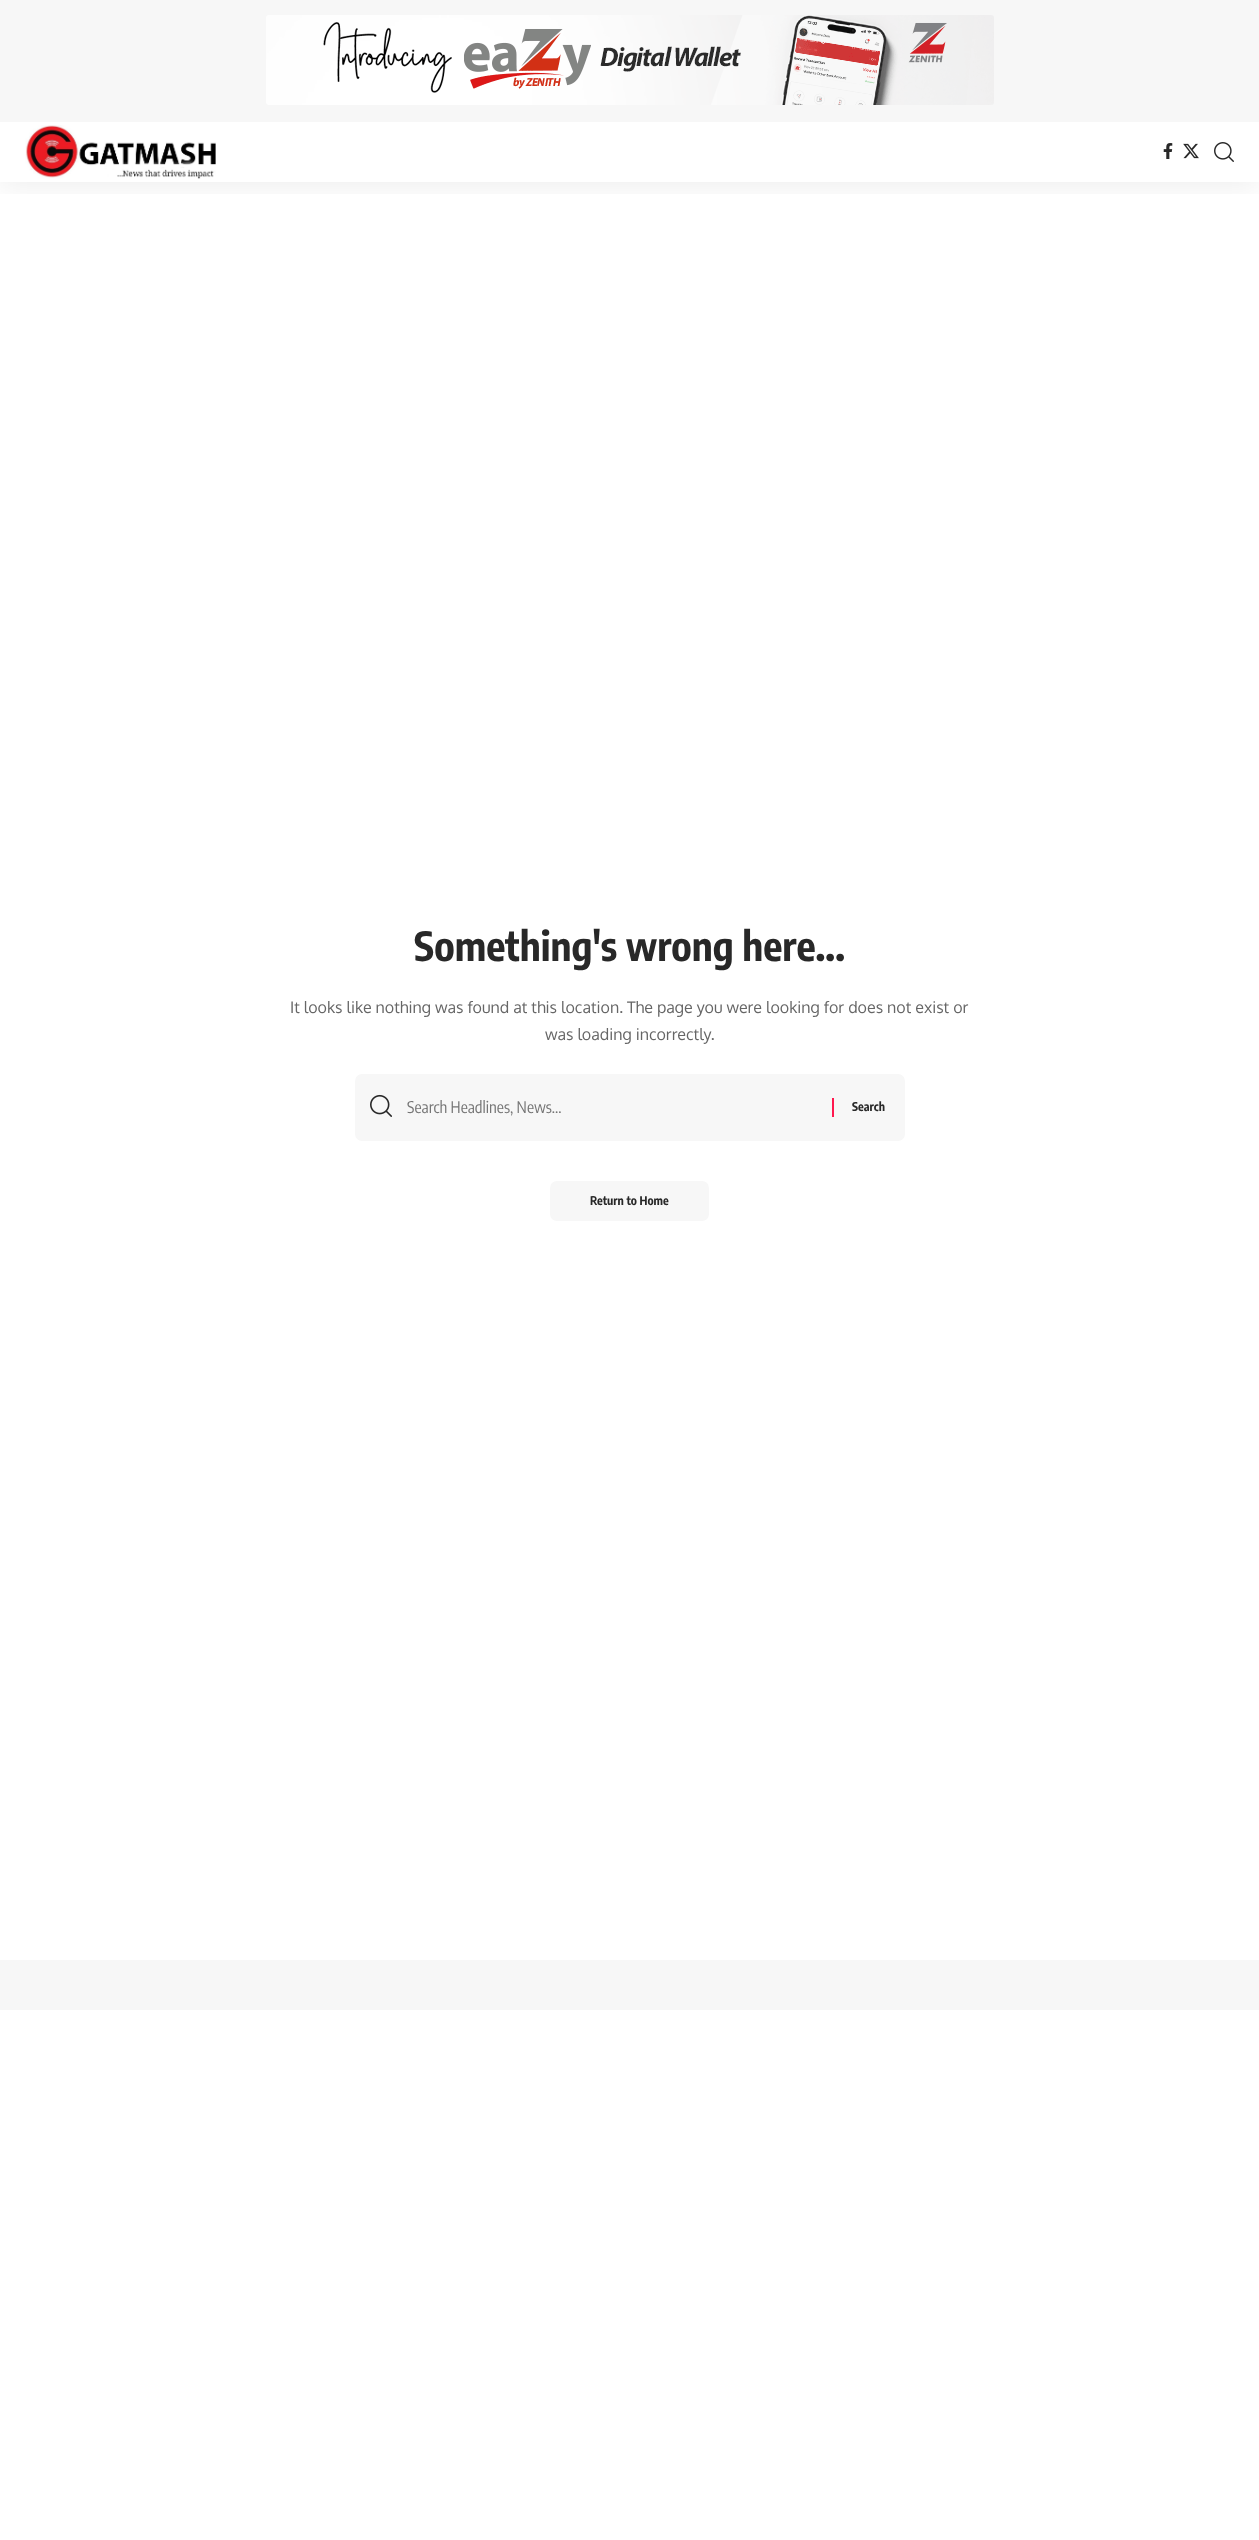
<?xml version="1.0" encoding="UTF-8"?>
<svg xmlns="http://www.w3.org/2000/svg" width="1259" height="2540">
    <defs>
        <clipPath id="clip1"><rect x="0" y="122" width="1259" height="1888"/></clipPath>
        <clipPath id="clip2"><rect x="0" y="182" width="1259" height="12"/></clipPath>
        <filter id="blur1" x="-50%" y="-200%" width="200%" height="500%"><feGaussianBlur stdDeviation="15"/></filter>
    </defs>
    <rect width="100%" height="100%" fill="#FFFFFF"/>
    <rect x="0" y="0" width="1259" height="122" fill="#F7F7F7"/>
    <image x="266" y="15" width="728" height="90" href="img_01.png"/>
    <g clip-path="url(#clip1)">
        <g clip-path="url(#clip2)">
            <rect x="0" y="126" width="1259" height="60" fill="#000000" fill-opacity="0.07" filter="url(#blur1)"/>
        </g>
    </g>
    <image x="25" y="125" width="191" height="54" href="img_02.png"/>
    <image x="1163" y="143" width="10" height="16" href="img_03.png"/>
    <image x="1183" y="143" width="16" height="16" href="img_04.png"/>
    <image x="1214" y="142" width="20" height="20" href="img_05.png"/>
    <text x="414" y="961" font-family="Encode Sans Condensed" font-size="40" font-weight="700" fill="#282828">Something's wrong here...</text>
    <text x="290" y="1013" font-family="Oxygen" font-size="16" fill="#666666">It looks like nothing was found at this location. The page you were looking for does not exist or</text>
    <text x="545" y="1040" font-family="Oxygen" font-size="16" fill="#666666">was loading incorrectly.</text>
    <rect x="355" y="1074" width="550" height="67" rx="7" fill="#F7F7F7"/>
    <image x="370" y="1094" width="22" height="23" href="img_06.png"/>
    <text x="407" y="1113" font-family="Encode Sans Condensed" font-size="16" fill="#757575">Search Headlines, News...</text>
    <rect x="832" y="1098" width="2" height="19" fill="#FF184E"/>
    <text x="852" y="1111" font-family="Encode Sans Condensed" font-size="12" font-weight="700" fill="#282828">Search</text>
    <rect x="550" y="1181" width="159" height="40" rx="7" fill="#F7F7F7"/>
    <text x="590" y="1205" font-family="Encode Sans Condensed" font-size="12" font-weight="700" fill="#282828">Return to Home</text>
    <rect x="0" y="1960" width="1259" height="50" fill="#F7F7F7"/>
</svg>
